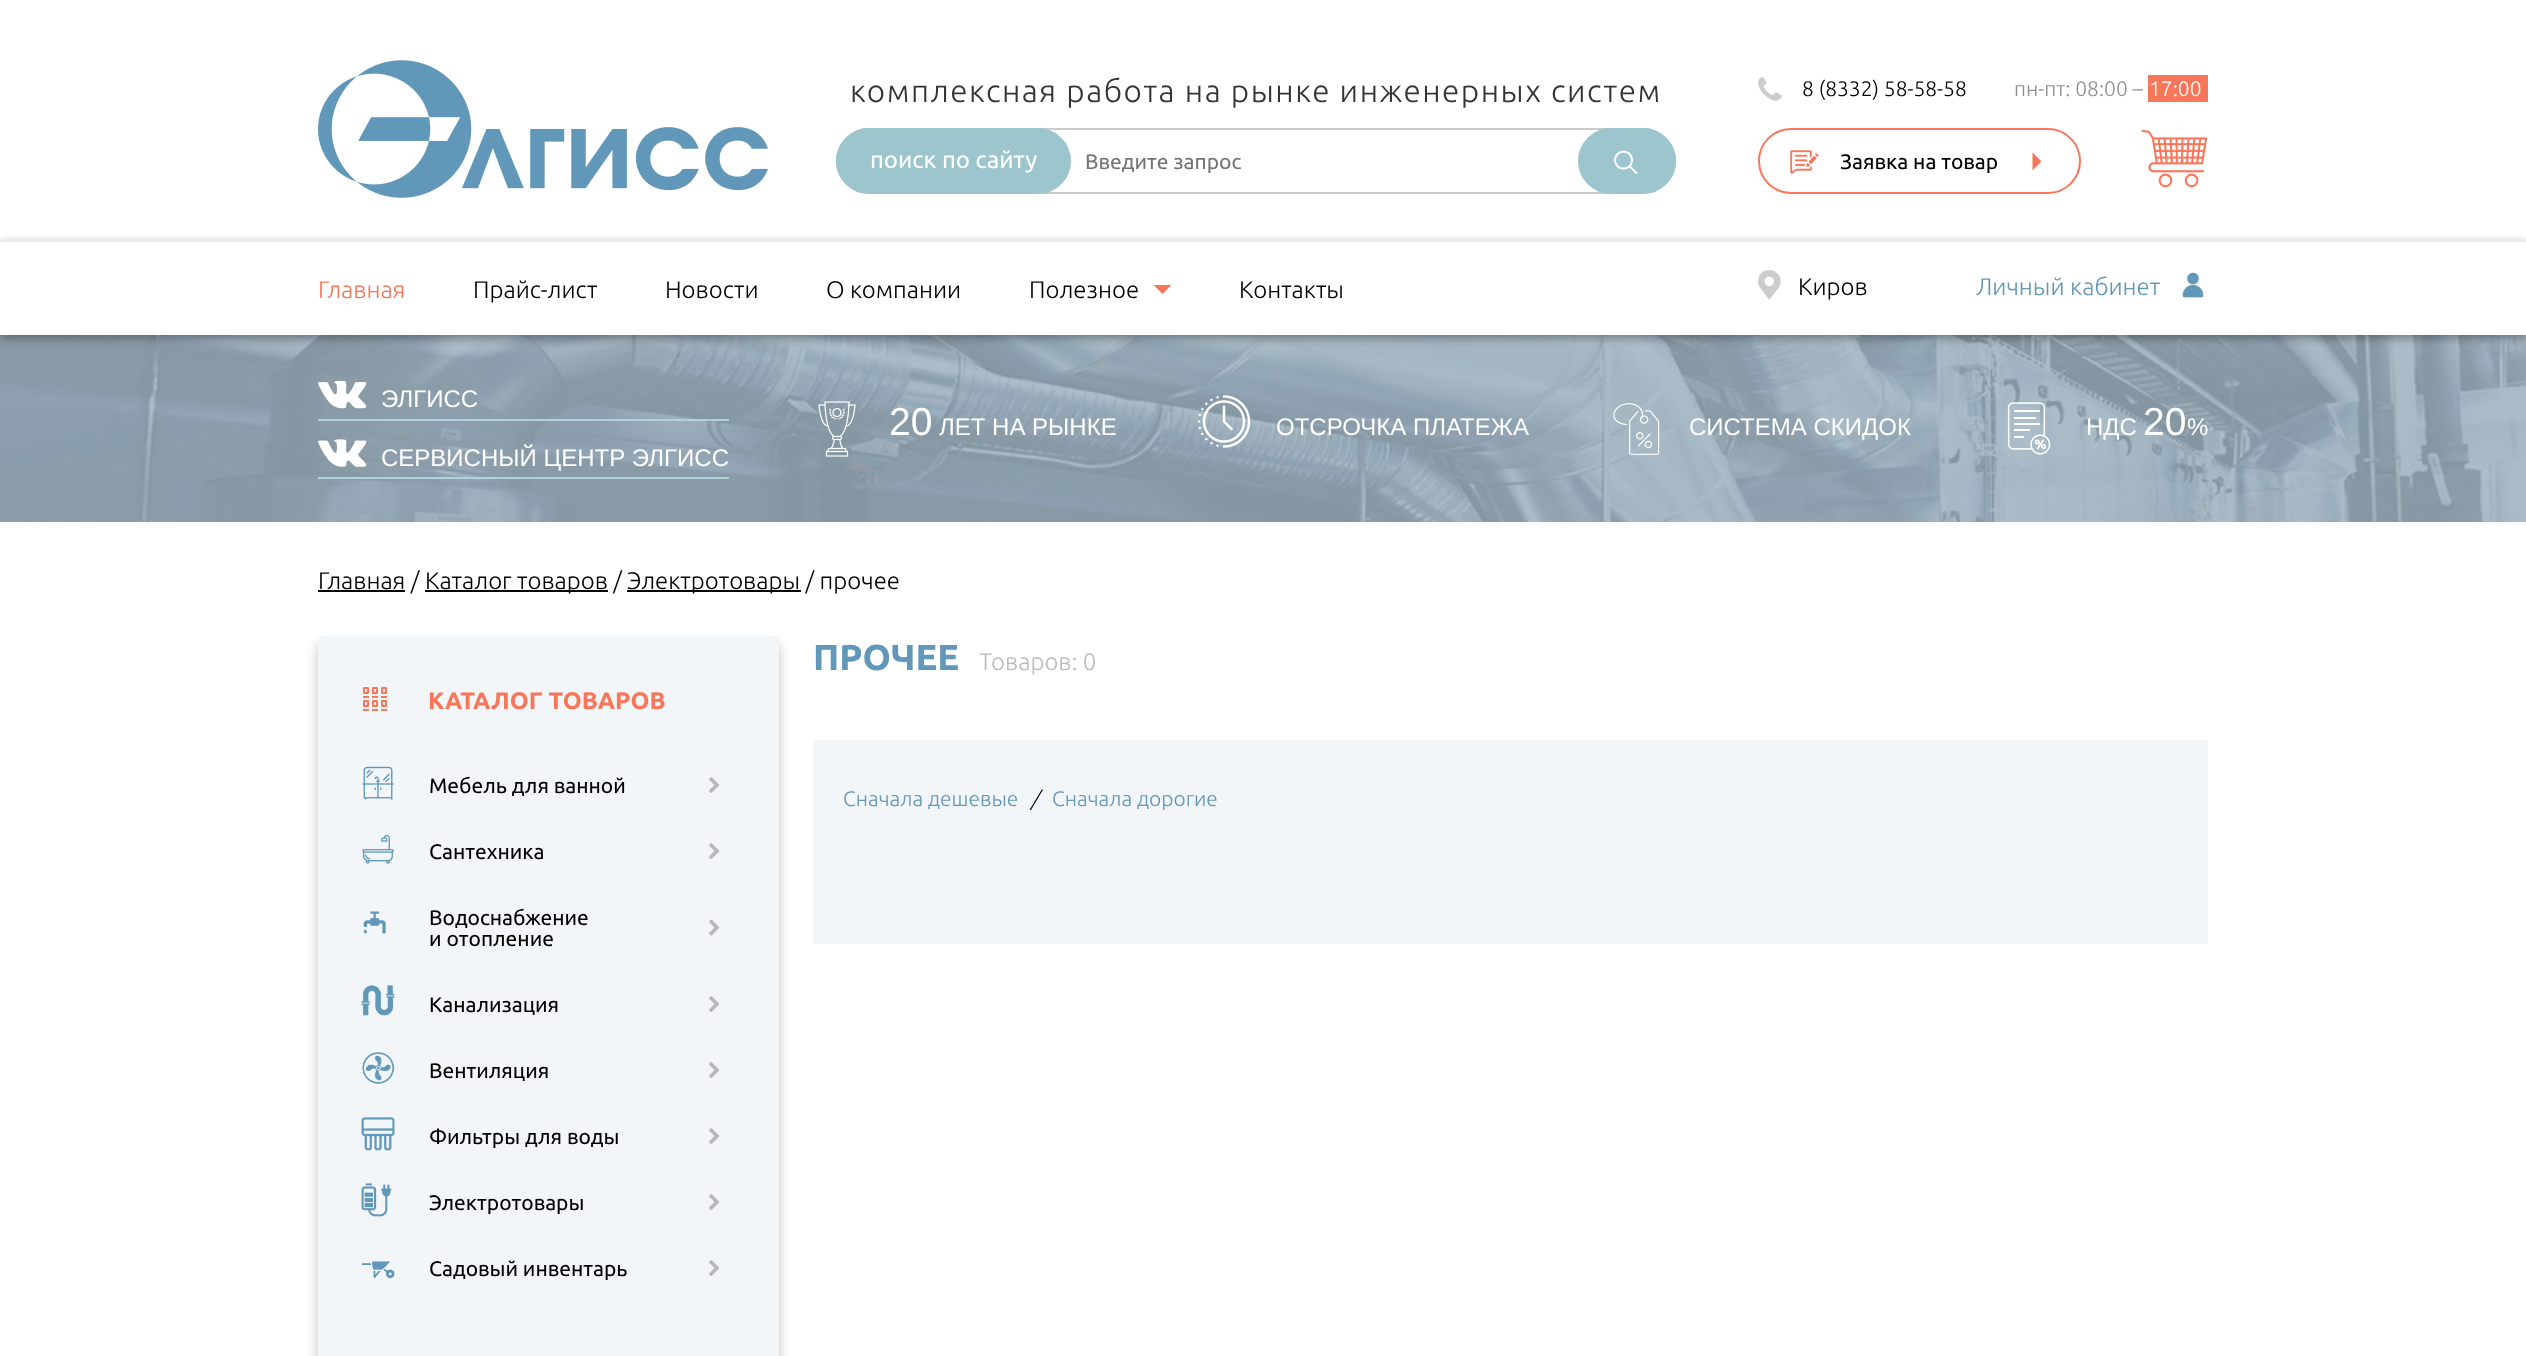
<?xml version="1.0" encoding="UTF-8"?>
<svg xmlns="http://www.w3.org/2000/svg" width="2526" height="1356">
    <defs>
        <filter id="blur1" x="-50%" y="-200%" width="200%" height="500%"><feGaussianBlur stdDeviation="5"/></filter>
        <filter id="blur2" x="-50%" y="-200%" width="200%" height="500%"><feGaussianBlur stdDeviation="6"/></filter>
    </defs>
    <rect width="100%" height="100%" fill="#FFFFFF"/>
    <image x="318" y="60" width="450" height="138" href="img_01.png"/>
    <text x="850" y="102" font-family="Ubuntu" font-size="31.5" font-weight="300" letter-spacing="1.5" fill="#343434">комплексная работа на рынке инженерных систем</text>
    <rect x="837" y="129" width="838" height="64" rx="32" fill="none" stroke="#CACACA" stroke-width="2"/>
    <rect x="837.5" y="129.5" width="232" height="63" rx="31.5" fill="#9CC5CE" stroke="#9CC5CE" stroke-width="3"/>
    <text x="870" y="168" font-family="Ubuntu" font-size="24" fill="#FFFFFF">поиск по сайту</text>
    <text x="1085" y="169" font-family="Ubuntu" font-size="21" fill="#757575">Введите запрос</text>
    <rect x="1579.5" y="129.5" width="95" height="63" rx="31.5" fill="#9CC5CE" stroke="#9CC5CE" stroke-width="3"/>
    <image x="1614" y="150" width="24" height="24" href="img_02.png"/>
    <image x="1758" y="77" width="24" height="24" href="img_03.png"/>
    <text x="1802" y="96" font-family="Ubuntu" font-size="21" font-weight="300" fill="#010101">8 (8332) 58-58-58</text>
    <text x="2014" y="96" font-family="Ubuntu" font-size="21" font-weight="300" fill="#8D8D8D">пн-пт: 08:00 –</text>
    <rect x="2148" y="75" width="60" height="27" fill="#F8775B"/>
    <text x="2149" y="96" font-family="Ubuntu" font-size="21" font-weight="300" fill="#FFFFFF">17:00</text>
    <rect x="1759" y="129" width="321" height="64" rx="32" fill="none" stroke="#F8775B" stroke-width="2"/>
    <image x="1790" y="150" width="29" height="24" href="img_04.png"/>
    <text x="1840" y="169" font-family="Ubuntu" font-size="21" fill="#010101">Заявка на товар</text>
    <path d="M 2032.5 170.5 V 152.5 L 2041.5 161.5 Z" fill="#F8775B"/>
    <image x="2141" y="130" width="67" height="58" href="img_05.png"/>
    <image x="0" y="335" width="2526" height="187" href="img_08.png"/>
    <rect x="0" y="243" width="2526" height="95" fill="#000000" fill-opacity="0.35" filter="url(#blur1)"/>
    <rect x="0" y="242" width="2526" height="93" fill="#FFFFFF"/>
    <rect x="0" y="240" width="2526" height="2" fill="#E8E8E8"/>
    <text x="318" y="298" font-family="Ubuntu" font-size="24" font-weight="300" fill="#F8775B">Главная</text>
    <text x="473" y="298" font-family="Ubuntu" font-size="24" font-weight="300" fill="#010101">Прайс-лист</text>
    <text x="665" y="298" font-family="Ubuntu" font-size="24" font-weight="300" fill="#010101">Новости</text>
    <text x="826" y="298" font-family="Ubuntu" font-size="24" font-weight="300" fill="#010101">О компании</text>
    <text x="1029" y="298" font-family="Ubuntu" font-size="24" font-weight="300" fill="#010101">Полезное</text>
    <path d="M 1153.5 285 H 1171.5 L 1162.5 294 Z" fill="#F8775B"/>
    <text x="1239" y="298" font-family="Ubuntu" font-size="24" font-weight="300" fill="#010101">Контакты</text>
    <image x="1758" y="270" width="23" height="30" href="img_06.png"/>
    <text x="1798" y="295" font-family="Ubuntu" font-size="24" font-weight="300" fill="#010101">Киров</text>
    <text x="1976" y="295" font-family="Ubuntu" font-size="24" font-weight="300" fill="#6197B9">Личный кабинет</text>
    <image x="2182" y="272" width="22" height="26" href="img_07.png"/>
    <image x="318" y="380" width="49" height="29" href="img_09.png"/>
    <text x="381" y="407" font-family="Liberation Sans" font-size="24" fill="#FFFFFF">ЭЛГИСС</text>
    <rect x="318" y="419" width="411" height="2" fill="#B1D2D9"/>
    <image x="318" y="439" width="49" height="28" href="img_10.png"/>
    <text x="381" y="466" font-family="Liberation Sans" font-size="24" fill="#FFFFFF">СЕРВИСНЫЙ ЦЕНТР ЭЛГИСС</text>
    <rect x="318" y="477" width="411" height="2" fill="#B1D2D9"/>
    <image x="818" y="401" width="38" height="56" href="img_11.png"/>
    <text x="889" y="435" font-family="Liberation Sans" font-size="39" fill="#FFFFFF">20</text>
    <text x="939" y="435" font-family="Liberation Sans" font-size="24" fill="#FFFFFF">ЛЕТ НА РЫНКЕ</text>
    <image x="1197" y="395" width="54" height="53" href="img_12.png"/>
    <text x="1276" y="435" font-family="Liberation Sans" font-size="24" fill="#FFFFFF">ОТСРОЧКА ПЛАТЕЖА</text>
    <image x="1613" y="403" width="47" height="52" href="img_13.png"/>
    <text x="1689" y="435" font-family="Liberation Sans" font-size="24" fill="#FFFFFF">СИСТЕМА СКИДОК</text>
    <image x="2007" y="402" width="44" height="53" href="img_14.png"/>
    <text x="2086" y="435" font-family="Liberation Sans" font-size="24" fill="#FFFFFF">НДС</text>
    <text x="2143" y="435" font-family="Liberation Sans" font-size="39" fill="#FFFFFF">20</text>
    <text x="2187" y="435" font-family="Liberation Sans" font-size="24" fill="#FFFFFF">%</text>
    <rect x="318" y="590" width="87" height="2" fill="#010101"/>
    <text x="318" y="589" font-family="Ubuntu" font-size="24" font-weight="300" fill="#010101">Главная /</text>
    <rect x="425" y="590" width="183" height="2" fill="#010101"/>
    <text x="425" y="589" font-family="Ubuntu" font-size="24" font-weight="300" fill="#010101">Каталог товаров /</text>
    <rect x="627" y="590" width="174" height="2" fill="#010101"/>
    <text x="627" y="589" font-family="Ubuntu" font-size="24" font-weight="300" fill="#010101">Электротовары / прочее</text>
    <rect x="318" y="644" width="461" height="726" rx="5" fill="#000000" fill-opacity="0.25" filter="url(#blur2)"/>
    <rect x="318" y="636" width="461" height="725" rx="5" fill="#F3F6F8"/>
    <image x="363" y="687" width="24" height="24" href="img_15.png"/>
    <text x="428" y="709" font-family="Ubuntu" font-size="24" font-weight="700" fill="#F8775B">КАТАЛОГ ТОВАРОВ</text>
    <image x="362" y="766" width="32" height="34" href="img_16.png"/>
    <text x="429" y="793" font-family="Ubuntu" font-size="21" fill="#010101">Мебель для ванной</text>
    <image x="709" y="777" width="11" height="16" href="img_17.png"/>
    <image x="362" y="834" width="32" height="30" href="img_18.png"/>
    <text x="429" y="859" font-family="Ubuntu" font-size="21" fill="#010101">Сантехника</text>
    <image x="709" y="843" width="11" height="16" href="img_17.png"/>
    <image x="363" y="911" width="23" height="23" href="img_19.png"/>
    <text x="429" y="925" font-family="Ubuntu" font-size="21" fill="#010101">Водоснабжение</text>
    <image x="709" y="919" width="11" height="17" href="img_20.png"/>
    <text x="429" y="946" font-family="Ubuntu" font-size="21" fill="#010101">и отопление</text>
    <image x="361" y="985" width="34" height="31" href="img_21.png"/>
    <text x="429" y="1012" font-family="Ubuntu" font-size="21" fill="#010101">Канализация</text>
    <image x="709" y="996" width="11" height="16" href="img_17.png"/>
    <image x="362" y="1052" width="33" height="32" href="img_22.png"/>
    <text x="429" y="1078" font-family="Ubuntu" font-size="21" fill="#010101">Вентиляция</text>
    <image x="709" y="1062" width="11" height="16" href="img_17.png"/>
    <image x="361" y="1117" width="34" height="34" href="img_23.png"/>
    <text x="429" y="1144" font-family="Ubuntu" font-size="21" fill="#010101">Фильтры для воды</text>
    <image x="709" y="1128" width="11" height="16" href="img_17.png"/>
    <image x="361" y="1183" width="31" height="34" href="img_24.png"/>
    <text x="429" y="1210" font-family="Ubuntu" font-size="21" fill="#010101">Электротовары</text>
    <image x="709" y="1194" width="11" height="16" href="img_17.png"/>
    <image x="361" y="1261" width="34" height="18" href="img_25.png"/>
    <text x="429" y="1276" font-family="Ubuntu" font-size="21" fill="#010101">Садовый инвентарь</text>
    <image x="709" y="1260" width="11" height="16" href="img_17.png"/>
    <text x="813" y="670" font-family="Ubuntu" font-size="36" font-weight="700" fill="#6197B9">ПРОЧЕЕ</text>
    <text x="979" y="670" font-family="Ubuntu" font-size="24" font-weight="300" fill="#BBBBBB">Товаров: 0</text>
    <rect x="813" y="740" width="1395" height="204" fill="#F3F6F8"/>
    <text x="843" y="806" font-family="Ubuntu" font-size="21" font-weight="300" fill="#6197B9">Сначала дешевые</text>
    <text x="1031" y="806" font-family="Ubuntu" font-size="21" font-weight="300" font-style="italic" fill="#010101">/</text>
    <text x="1052" y="806" font-family="Ubuntu" font-size="21" font-weight="300" fill="#6197B9">Сначала дорогие</text>
</svg>
